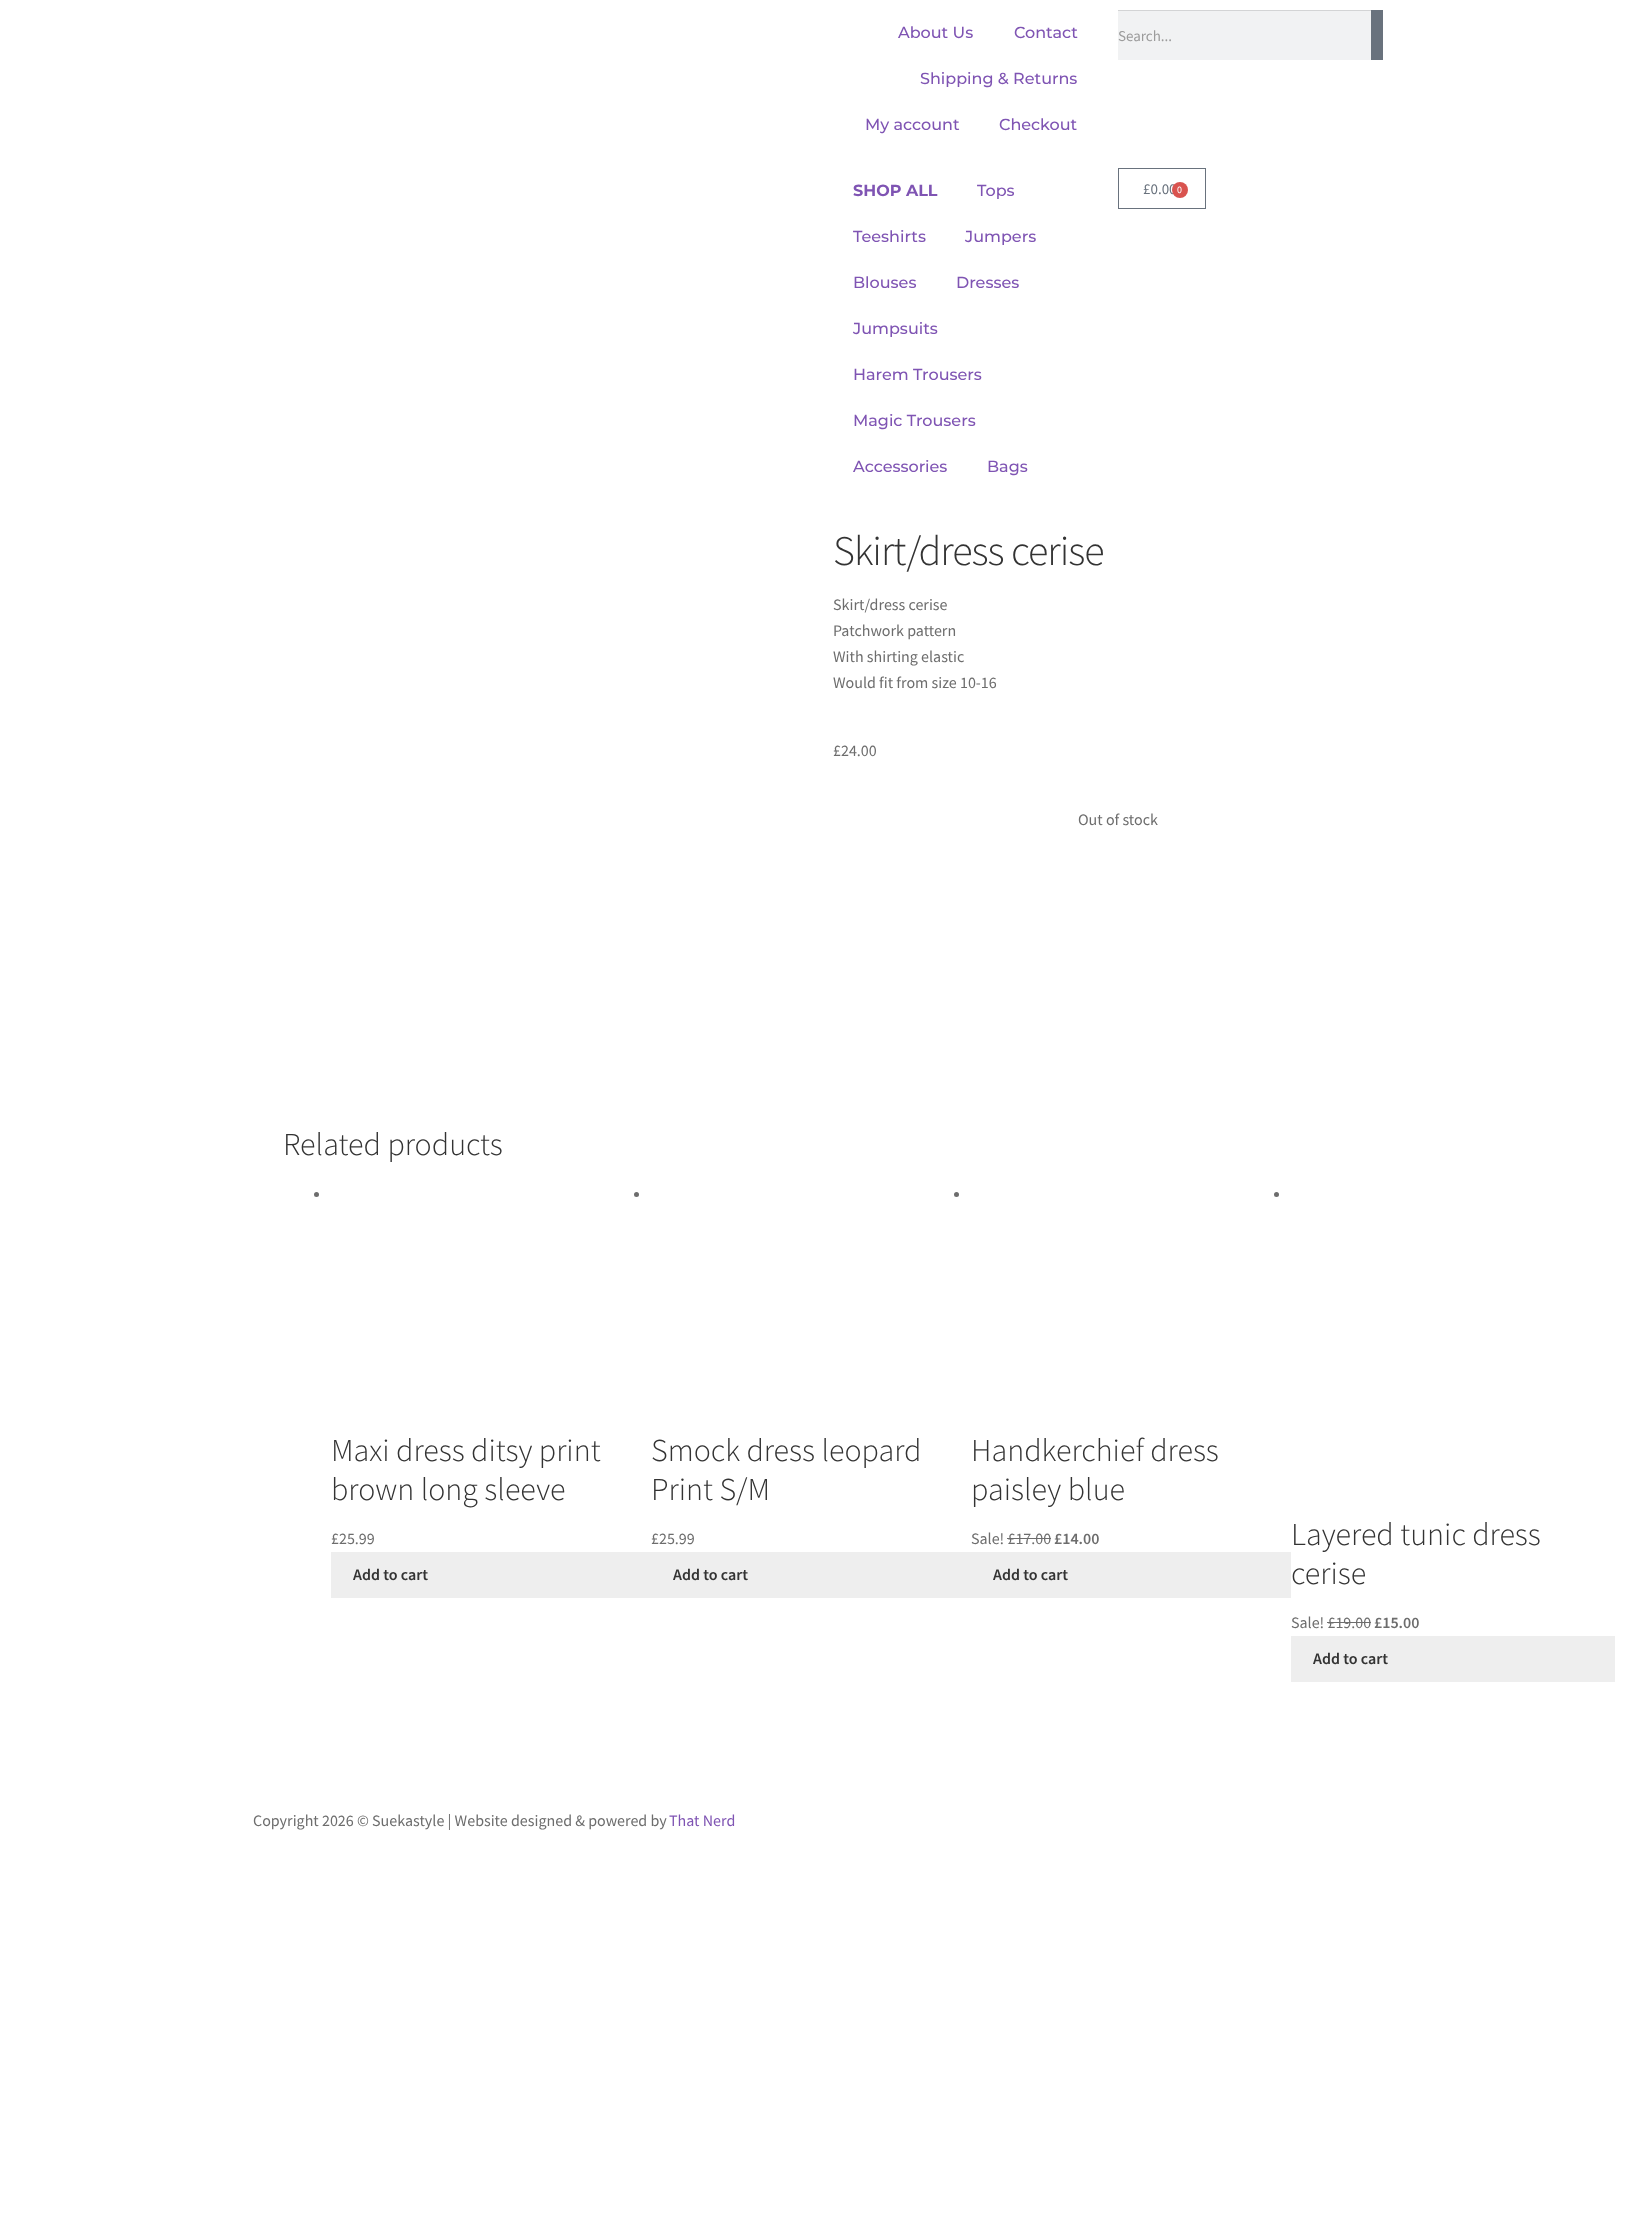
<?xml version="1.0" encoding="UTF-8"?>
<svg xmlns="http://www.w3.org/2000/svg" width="1645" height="2223">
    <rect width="100%" height="100%" fill="#FFFFFF"/>
    <text x="898" y="38" font-family="Montserrat" font-size="16" font-weight="500" fill="#7F54B3">About Us</text>
    <text x="1014" y="38" font-family="Montserrat" font-size="16" font-weight="500" fill="#7F54B3">Contact</text>
    <text x="920" y="84" font-family="Montserrat" font-size="16" font-weight="500" fill="#7F54B3">Shipping &amp; Returns</text>
    <text x="865" y="130" font-family="Montserrat" font-size="16" font-weight="500" fill="#7F54B3">My account</text>
    <text x="999" y="130" font-family="Montserrat" font-size="16" font-weight="500" fill="#7F54B3">Checkout</text>
    <rect x="1118" y="11" width="253" height="49" fill="#F1F2F3"/>
    <rect x="1118" y="10" width="253" height="1" fill="#D3D4D5"/>
    <text x="1118" y="41" font-family="Source Sans Pro" font-size="15" fill="#9B9B9B">Search...</text>
    <rect x="1371" y="10" width="12" height="50" fill="#69727D"/>
    <text x="853" y="196" font-family="Montserrat" font-size="16" font-weight="700" fill="#7F54B3">SHOP ALL</text>
    <text x="977" y="196" font-family="Montserrat" font-size="16" font-weight="500" fill="#7F54B3">Tops</text>
    <text x="853" y="242" font-family="Montserrat" font-size="16" font-weight="500" fill="#7F54B3">Teeshirts</text>
    <text x="965" y="242" font-family="Montserrat" font-size="16" font-weight="500" fill="#7F54B3">Jumpers</text>
    <text x="853" y="288" font-family="Montserrat" font-size="16" font-weight="500" fill="#7F54B3">Blouses</text>
    <text x="956" y="288" font-family="Montserrat" font-size="16" font-weight="500" fill="#7F54B3">Dresses</text>
    <text x="853" y="334" font-family="Montserrat" font-size="16" font-weight="500" fill="#7F54B3">Jumpsuits</text>
    <text x="853" y="380" font-family="Montserrat" font-size="16" font-weight="500" fill="#7F54B3">Harem Trousers</text>
    <text x="853" y="426" font-family="Montserrat" font-size="16" font-weight="500" fill="#7F54B3">Magic Trousers</text>
    <text x="853" y="472" font-family="Montserrat" font-size="16" font-weight="500" fill="#7F54B3">Accessories</text>
    <text x="987" y="472" font-family="Montserrat" font-size="16" font-weight="500" fill="#7F54B3">Bags</text>
    <rect x="1118.5" y="168.5" width="87" height="40" fill="none" stroke="#69727D"/>
    <text x="1143" y="194" font-family="Source Sans Pro" font-size="15" fill="#69727D">£0.00</text>
    <circle cx="1180" cy="190" r="8" fill="#D9534F"/>
    <text x="1177" y="193" font-family="Source Sans Pro" font-size="10" fill="#FFFFFF">0</text>
    <text x="833" y="565" font-family="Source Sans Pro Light" font-size="42" font-weight="300" letter-spacing="-1" fill="#333333">Skirt/dress cerise</text>
    <text font-family="Source Sans Pro" font-size="16" fill="#6D6D6D">
        <tspan x="833" y="610">Skirt/dress cerise</tspan>
        <tspan x="833" y="636">Patchwork pattern</tspan>
        <tspan x="833" y="662">With shirting elastic</tspan>
        <tspan x="833" y="688">Would fit from size 10-16</tspan>
    </text>
    <text x="833" y="756" font-family="Source Sans Pro" font-size="16" fill="#6D6D6D">£24.00</text>
    <text x="1078" y="825" font-family="Source Sans Pro" font-size="16" fill="#6D6D6D">Out of stock</text>
    <text x="283" y="1155" font-family="Source Sans Pro Light" font-size="32" font-weight="300" fill="#333333">Related products</text>
    <circle cx="316.5" cy="1194.5" r="2.5" fill="#6D6D6D"/>
    <text font-family="Source Sans Pro Light" font-size="32" font-weight="300" fill="#333333">
        <tspan x="331" y="1461">Maxi dress ditsy print</tspan>
        <tspan x="331" y="1500">brown long sleeve</tspan>
    </text>
    <text x="331" y="1544" font-family="Source Sans Pro" font-size="16" fill="#6D6D6D">£25.99</text>
    <rect x="331" y="1552" width="960" height="46" fill="#EEEEEE"/>
    <text x="353" y="1580" font-family="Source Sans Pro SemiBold" font-size="16" font-weight="600" fill="#333333">Add to cart</text>
    <circle cx="636.5" cy="1194.5" r="2.5" fill="#6D6D6D"/>
    <text font-family="Source Sans Pro Light" font-size="32" font-weight="300" fill="#333333">
        <tspan x="651" y="1461">Smock dress leopard</tspan>
        <tspan x="651" y="1500">Print S/M</tspan>
    </text>
    <text x="651" y="1544" font-family="Source Sans Pro" font-size="16" fill="#6D6D6D">£25.99</text>
    <text x="673" y="1580" font-family="Source Sans Pro SemiBold" font-size="16" font-weight="600" fill="#333333">Add to cart</text>
    <circle cx="956.5" cy="1194.5" r="2.5" fill="#6D6D6D"/>
    <text font-family="Source Sans Pro Light" font-size="32" font-weight="300" fill="#333333">
        <tspan x="971" y="1461">Handkerchief dress</tspan>
        <tspan x="971" y="1500">paisley blue</tspan>
    </text>
    <text x="971" y="1544" font-family="Source Sans Pro" font-size="16" fill="#6D6D6D">Sale! £17.00</text>
    <text x="1054" y="1544" font-family="Source Sans Pro SemiBold" font-size="16" font-weight="600" fill="#6D6D6D">£14.00</text>
    <rect x="1007" y="1538" width="44" height="1" fill="#6D6D6D"/>
    <text x="993" y="1580" font-family="Source Sans Pro SemiBold" font-size="16" font-weight="600" fill="#333333">Add to cart</text>
    <circle cx="1276.5" cy="1194.5" r="2.5" fill="#6D6D6D"/>
    <text font-family="Source Sans Pro Light" font-size="32" font-weight="300" fill="#333333">
        <tspan x="1291" y="1545">Layered tunic dress</tspan>
        <tspan x="1291" y="1584">cerise</tspan>
    </text>
    <text x="1291" y="1628" font-family="Source Sans Pro" font-size="16" fill="#6D6D6D">Sale! £19.00</text>
    <text x="1374" y="1628" font-family="Source Sans Pro SemiBold" font-size="16" font-weight="600" fill="#6D6D6D">£15.00</text>
    <rect x="1327" y="1622" width="44" height="1" fill="#6D6D6D"/>
    <rect x="1291" y="1636" width="324" height="46" fill="#EEEEEE"/>
    <text x="1313" y="1664" font-family="Source Sans Pro SemiBold" font-size="16" font-weight="600" fill="#333333">Add to cart</text>
    <text x="253" y="1826" font-family="Source Sans Pro" font-size="16" fill="#6D6D6D">Copyright 2026 © Suekastyle | Website designed &amp; powered by</text>
    <text x="669" y="1826" font-family="Source Sans Pro" font-size="16" fill="#7F54B3">That Nerd</text>
</svg>
